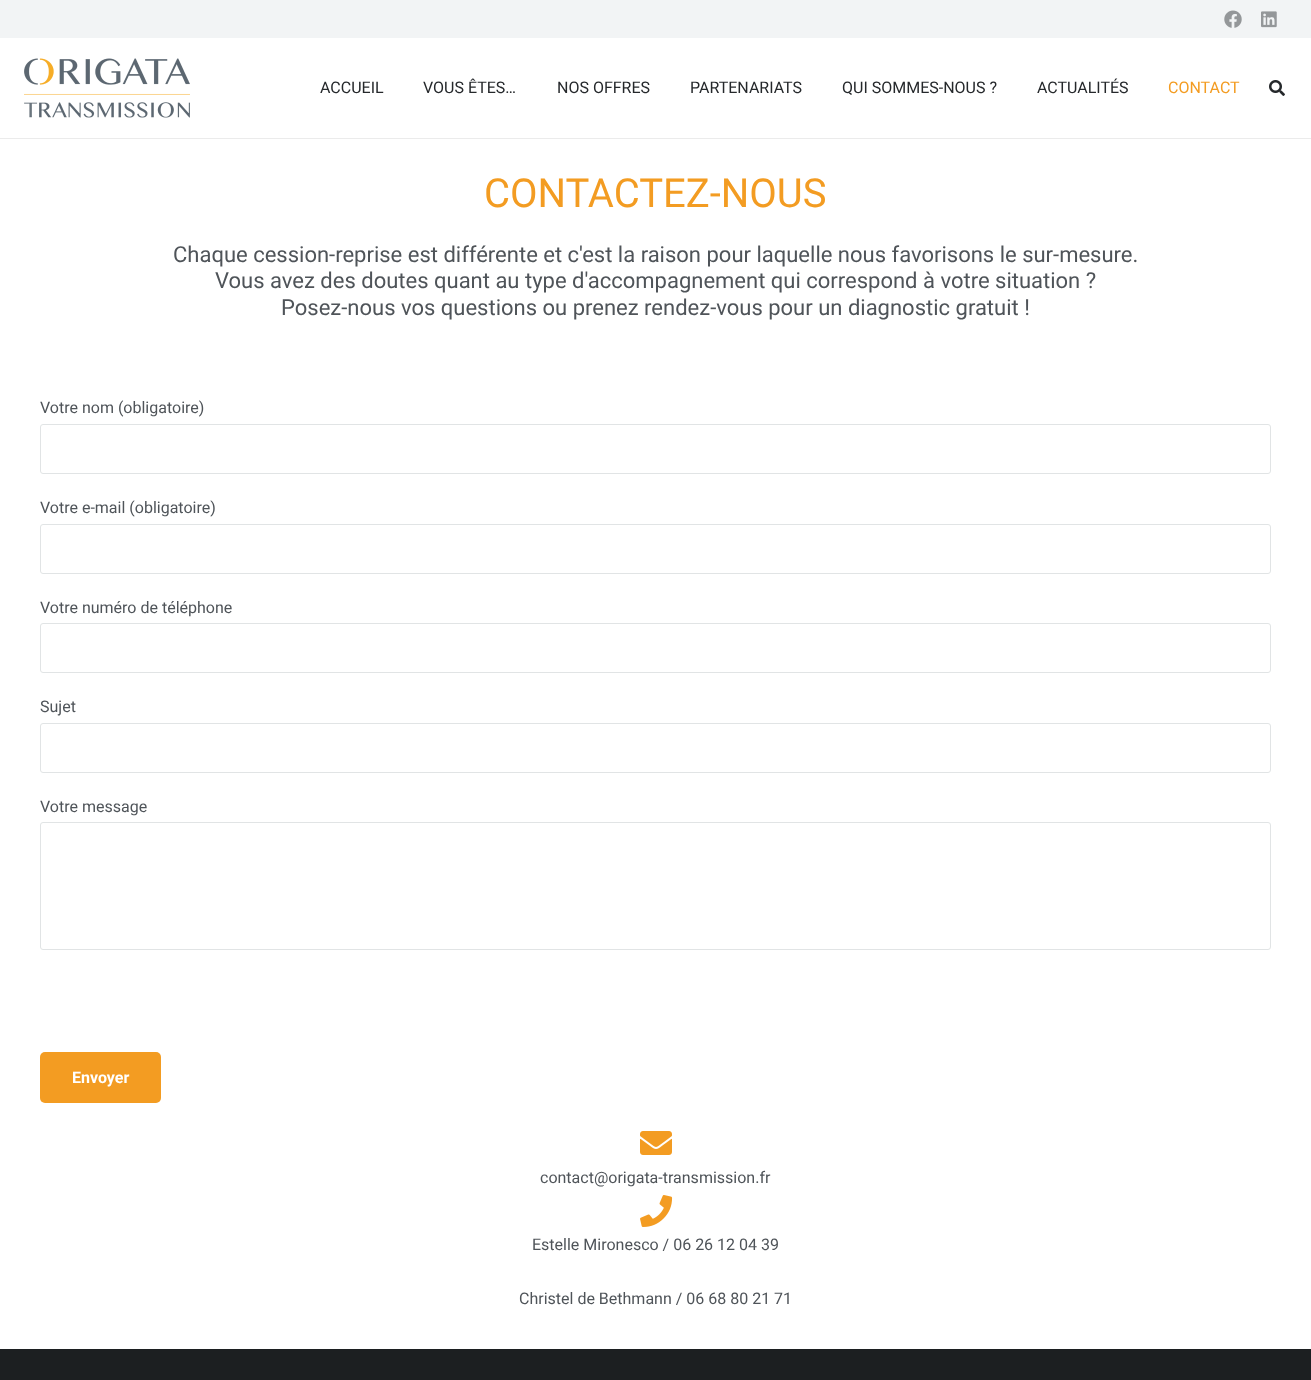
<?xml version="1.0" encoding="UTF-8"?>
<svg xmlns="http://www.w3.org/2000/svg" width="1311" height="1380">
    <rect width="100%" height="100%" fill="#FFFFFF"/>
    <rect x="0" y="0" width="1311" height="38" fill="#F2F4F5"/>
    <image x="1224" y="10" width="18" height="18" href="img_01.png"/>
    <image x="1261" y="11" width="16" height="17" href="img_02.png"/>
    <rect x="0" y="138" width="1311" height="1" fill="#EBEBEB"/>
    <image x="24" y="58" width="166" height="60" href="img_03.png"/>
    <text x="320" y="93" font-family="Roboto" font-size="16" fill="#25282B">ACCUEIL</text>
    <text x="423" y="93" font-family="Roboto" font-size="16" fill="#25282B">VOUS ÊTES…</text>
    <text x="557" y="93" font-family="Roboto" font-size="16" fill="#25282B">NOS OFFRES</text>
    <text x="690" y="93" font-family="Roboto" font-size="16" fill="#25282B">PARTENARIATS</text>
    <text x="842" y="93" font-family="Roboto" font-size="16" fill="#25282B">QUI SOMMES-NOUS ?</text>
    <text x="1037" y="93" font-family="Roboto" font-size="16" fill="#25282B">ACTUALITÉS</text>
    <text x="1168" y="93" font-family="Roboto" font-size="16" fill="#F39C22">CONTACT</text>
    <image x="1269" y="80" width="16" height="16" href="img_04.png"/>
    <text x="484" y="207" font-family="Roboto" font-size="40" fill="#F39C22">CONTACTEZ-NOUS</text>
    <text x="173" y="262" font-family="Roboto" font-size="22" fill="#4F5459">Chaque cession-reprise est différente et c'est la raison pour laquelle nous favorisons le sur-mesure.</text>
    <text x="215" y="288" font-family="Roboto" font-size="22" fill="#4F5459">Vous avez des doutes quant au type d'accompagnement qui correspond à votre situation ?</text>
    <text x="281" y="315" font-family="Roboto" font-size="22" fill="#4F5459">Posez-nous vos questions ou prenez rendez-vous pour un diagnostic gratuit !</text>
    <text x="40" y="413" font-family="Roboto" font-size="16" fill="#4F5459">Votre nom (obligatoire)</text>
    <rect x="40.5" y="424.5" width="1230" height="49" rx="2.5" fill="none" stroke="#E1E4E5"/>
    <text x="40" y="513" font-family="Roboto" font-size="16" fill="#4F5459">Votre e-mail (obligatoire)</text>
    <rect x="40.5" y="524.5" width="1230" height="49" rx="2.5" fill="none" stroke="#E1E4E5"/>
    <text x="40" y="613" font-family="Roboto" font-size="16" fill="#4F5459">Votre numéro de téléphone</text>
    <rect x="40.5" y="623.5" width="1230" height="49" rx="2.5" fill="none" stroke="#E1E4E5"/>
    <text x="40" y="712" font-family="Roboto" font-size="16" fill="#4F5459">Sujet</text>
    <rect x="40.5" y="723.5" width="1230" height="49" rx="2.5" fill="none" stroke="#E1E4E5"/>
    <text x="40" y="812" font-family="Roboto" font-size="16" fill="#4F5459">Votre message</text>
    <rect x="40.5" y="822.5" width="1230" height="127" rx="2.5" fill="none" stroke="#E1E4E5"/>
    <rect x="40" y="1052" width="121" height="51" rx="5" fill="#F39C22"/>
    <text x="72" y="1083" font-family="Roboto" font-size="16" font-weight="700" fill="#FFFFFF">Envoyer</text>
    <image x="640" y="1131" width="32" height="24" href="img_05.png"/>
    <text x="540" y="1183" font-family="Roboto" font-size="16" fill="#4F5459">contact@origata-transmission.fr</text>
    <image x="640" y="1195" width="33" height="32" href="img_06.png"/>
    <text x="532" y="1250" font-family="Roboto" font-size="16" fill="#4F5459">Estelle Mironesco / 06 26 12 04 39</text>
    <text x="519" y="1304" font-family="Roboto" font-size="16" fill="#4F5459">Christel de Bethmann / 06 68 80 21 71</text>
    <rect x="0" y="1349" width="1311" height="31" fill="#1C1F21"/>
</svg>
